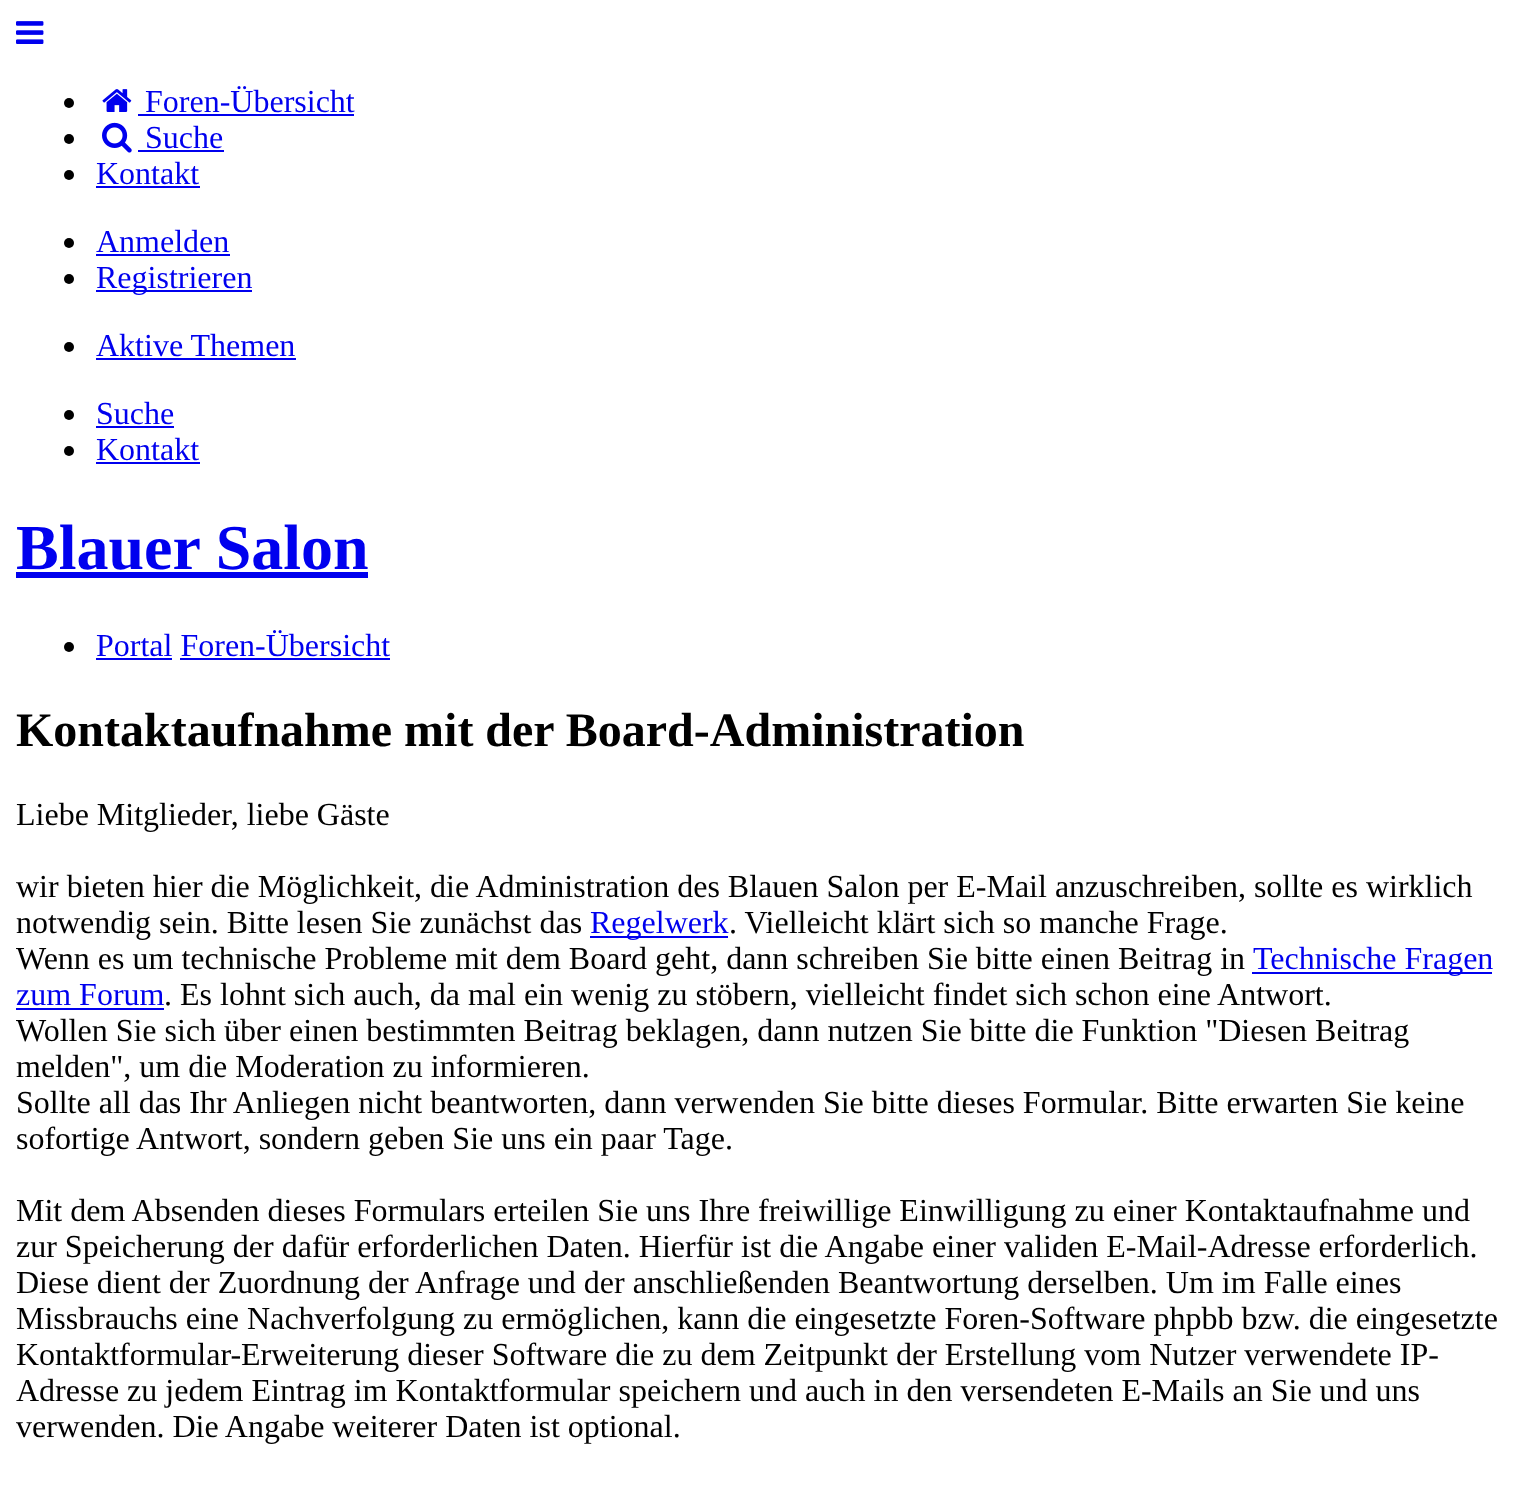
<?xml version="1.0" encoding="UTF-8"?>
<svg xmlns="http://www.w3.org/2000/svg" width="1521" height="1492">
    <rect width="100%" height="100%" fill="#FFFFFF"/>
    <image x="16" y="21" width="28" height="23" href="img_01.png"/>
    <circle cx="69" cy="103" r="5" fill="#000000"/>
    <image x="102" y="89" width="30" height="23" href="img_02.png"/>
    <text x="145" y="112" font-family="Liberation Serif" font-size="32" fill="#0000EE">Foren-Übersicht</text>
    <rect x="138" y="114" width="216" height="2" fill="#0000EE"/>
    <circle cx="69" cy="139" r="5" fill="#000000"/>
    <image x="102" y="122" width="30" height="31" href="img_03.png"/>
    <text x="145" y="148" font-family="Liberation Serif" font-size="32" fill="#0000EE">Suche</text>
    <rect x="138" y="150" width="86" height="2" fill="#0000EE"/>
    <circle cx="69" cy="175" r="5" fill="#000000"/>
    <text x="96" y="184" font-family="Liberation Serif" font-size="32" fill="#0000EE">Kontakt</text>
    <rect x="96" y="186" width="104" height="2" fill="#0000EE"/>
    <circle cx="69" cy="243" r="5" fill="#000000"/>
    <text x="96" y="252" font-family="Liberation Serif" font-size="32" fill="#0000EE">Anmelden</text>
    <rect x="96" y="254" width="134" height="2" fill="#0000EE"/>
    <circle cx="69" cy="279" r="5" fill="#000000"/>
    <rect x="96" y="290" width="156" height="2" fill="#0000EE"/>
    <text x="96" y="288" font-family="Liberation Serif" font-size="32" fill="#0000EE">Registrieren</text>
    <circle cx="69" cy="347" r="5" fill="#000000"/>
    <text x="96" y="356" font-family="Liberation Serif" font-size="32" fill="#0000EE">Aktive Themen</text>
    <rect x="96" y="358" width="200" height="2" fill="#0000EE"/>
    <circle cx="69" cy="415" r="5" fill="#000000"/>
    <text x="96" y="424" font-family="Liberation Serif" font-size="32" fill="#0000EE">Suche</text>
    <rect x="96" y="426" width="78" height="2" fill="#0000EE"/>
    <circle cx="69" cy="451" r="5" fill="#000000"/>
    <text x="96" y="460" font-family="Liberation Serif" font-size="32" fill="#0000EE">Kontakt</text>
    <rect x="96" y="462" width="104" height="2" fill="#0000EE"/>
    <text x="16" y="569" font-family="Liberation Serif" font-size="64" font-weight="700" fill="#0000EE">Blauer Salon</text>
    <rect x="16" y="572" width="352" height="6" fill="#0000EE"/>
    <circle cx="69" cy="647" r="5" fill="#000000"/>
    <text x="96" y="656" font-family="Liberation Serif" font-size="32" fill="#0000EE">Portal Foren-Übersicht</text>
    <rect x="96" y="658" width="76" height="2" fill="#0000EE"/>
    <rect x="180" y="658" width="210" height="2" fill="#0000EE"/>
    <text x="16" y="746" font-family="Liberation Serif" font-size="48" font-weight="700" fill="#000000">Kontaktaufnahme mit der Board-Administration</text>
    <text x="16" y="825" font-family="Liberation Serif" font-size="32" fill="#000000">Liebe Mitglieder, liebe Gäste</text>
    <text font-family="Liberation Serif" font-size="32" fill="#000000">
        <tspan x="16" y="897">wir bieten hier die Möglichkeit, die Administration des Blauen Salon per E-Mail anzuschreiben, sollte es wirklich</tspan>
        <tspan x="16" y="933">notwendig sein. Bitte lesen Sie zunächst das</tspan>
    </text>
    <rect x="590" y="936" width="138" height="2" fill="#0000EE"/>
    <text x="590" y="933" font-family="Liberation Serif" font-size="32" fill="#0000EE">Regelwerk</text>
    <text x="729" y="933" font-family="Liberation Serif" font-size="32" fill="#000000">. Vielleicht klärt sich so manche Frage.</text>
    <text x="16" y="969" font-family="Liberation Serif" font-size="32" fill="#000000">Wenn es um technische Probleme mit dem Board geht, dann schreiben Sie bitte einen Beitrag in</text>
    <rect x="1252" y="972" width="240" height="2" fill="#0000EE"/>
    <text x="1253" y="969" font-family="Liberation Serif" font-size="32" fill="#0000EE">Technische Fragen</text>
    <text x="16" y="1005" font-family="Liberation Serif" font-size="32" fill="#0000EE">zum Forum</text>
    <rect x="16" y="1008" width="148" height="2" fill="#0000EE"/>
    <text x="164" y="1005" font-family="Liberation Serif" font-size="32" fill="#000000">. Es lohnt sich auch, da mal ein wenig zu stöbern, vielleicht findet sich schon eine Antwort.</text>
    <text font-family="Liberation Serif" font-size="32" fill="#000000">
        <tspan x="16" y="1041">Wollen Sie sich über einen bestimmten Beitrag beklagen, dann nutzen Sie bitte die Funktion "Diesen Beitrag</tspan>
        <tspan x="16" y="1077">melden", um die Moderation zu informieren.</tspan>
        <tspan x="16" y="1113">Sollte all das Ihr Anliegen nicht beantworten, dann verwenden Sie bitte dieses Formular. Bitte erwarten Sie keine</tspan>
        <tspan x="16" y="1149">sofortige Antwort, sondern geben Sie uns ein paar Tage.</tspan>
    </text>
    <text font-family="Liberation Serif" font-size="32" fill="#000000">
        <tspan x="16" y="1221">Mit dem Absenden dieses Formulars erteilen Sie uns Ihre freiwillige Einwilligung zu einer Kontaktaufnahme und</tspan>
        <tspan x="16" y="1257">zur Speicherung der dafür erforderlichen Daten. Hierfür ist die Angabe einer validen E-Mail-Adresse erforderlich.</tspan>
        <tspan x="16" y="1293">Diese dient der Zuordnung der Anfrage und der anschließenden Beantwortung derselben. Um im Falle eines</tspan>
        <tspan x="16" y="1329">Missbrauchs eine Nachverfolgung zu ermöglichen, kann die eingesetzte Foren-Software phpbb bzw. die eingesetzte</tspan>
        <tspan x="16" y="1365">Kontaktformular-Erweiterung dieser Software die zu dem Zeitpunkt der Erstellung vom Nutzer verwendete IP-</tspan>
        <tspan x="16" y="1401">Adresse zu jedem Eintrag im Kontaktformular speichern und auch in den versendeten E-Mails an Sie und uns</tspan>
        <tspan x="16" y="1437">verwenden. Die Angabe weiterer Daten ist optional.</tspan>
    </text>
</svg>
